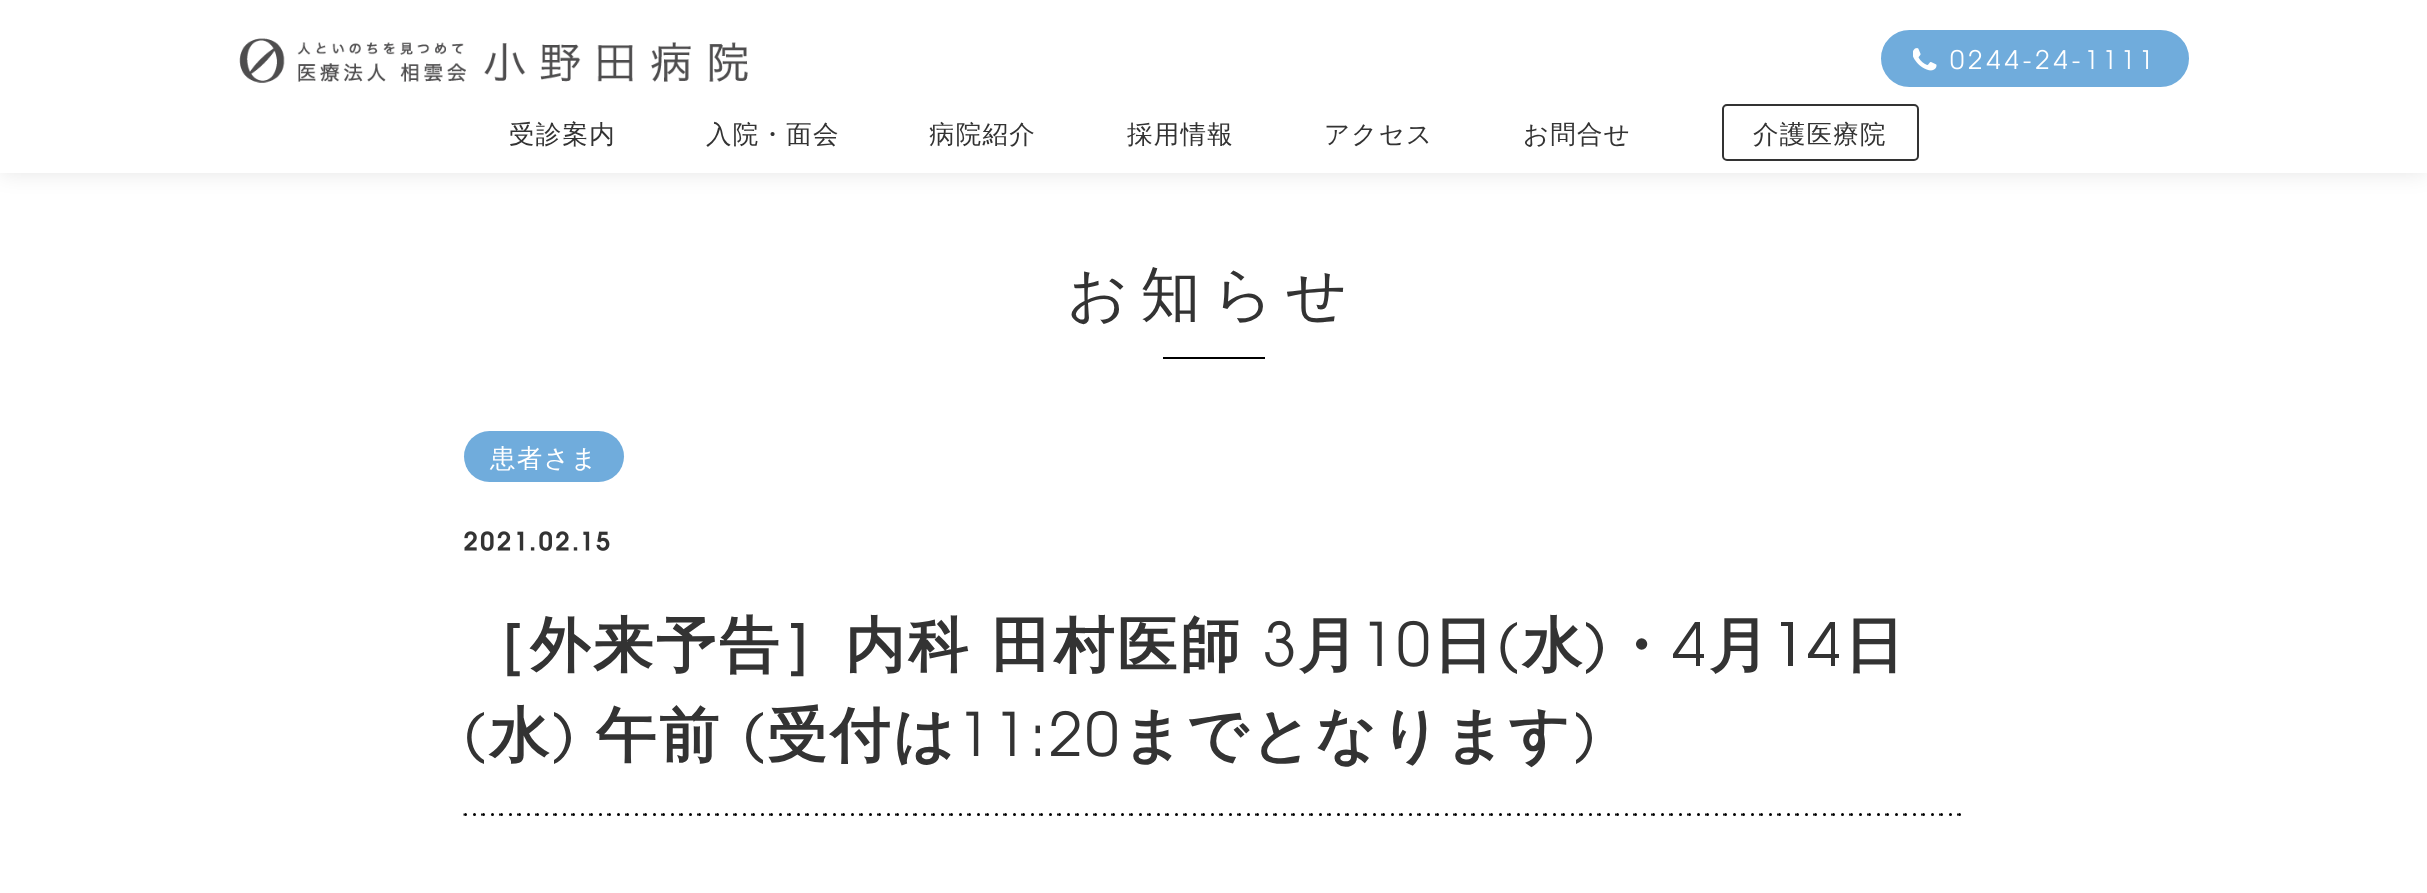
<?xml version="1.0" encoding="UTF-8"?>
<svg xmlns="http://www.w3.org/2000/svg" width="2427" height="893">
    <defs>
        <filter id="blur1" x="-50%" y="-200%" width="200%" height="500%"><feGaussianBlur stdDeviation="11"/></filter>
    </defs>
    <rect width="100%" height="100%" fill="#FFFFFF"/>
    <rect x="0" y="0" width="2427" height="173" fill="#000000" fill-opacity="0.1" filter="url(#blur1)"/>
    <rect x="0" y="0" width="2427" height="173" fill="#FFFFFF"/>
    <image x="239" y="38" width="509" height="45" href="img_01.png"/>
    <rect x="1882" y="31" width="306" height="55" rx="27.5" fill="#70ACDC" stroke="#70ACDC" stroke-width="2"/>
    <image x="1913" y="48" width="24" height="23" href="img_02.png"/>
    <image x="1950" y="49" width="198" height="21" href="img_03.png"/>
    <text x="509" y="143" font-family="WenQuanYi Zen Hei" font-size="25.5" font-weight="500" letter-spacing="1.25" fill="#333333">受診案内</text>
    <text x="706" y="143" font-family="WenQuanYi Zen Hei" font-size="25.5" font-weight="500" letter-spacing="1.25" fill="#333333">入院・面会</text>
    <text x="929" y="143" font-family="WenQuanYi Zen Hei" font-size="25.5" font-weight="500" letter-spacing="1.25" fill="#333333">病院紹介</text>
    <text x="1127" y="143" font-family="WenQuanYi Zen Hei" font-size="25.5" font-weight="500" letter-spacing="1.25" fill="#333333">採用情報</text>
    <text x="1324" y="143" font-family="WenQuanYi Zen Hei" font-size="25.5" font-weight="500" letter-spacing="1.25" fill="#333333">アクセス</text>
    <text x="1523" y="143" font-family="WenQuanYi Zen Hei" font-size="25.5" font-weight="500" letter-spacing="1.25" fill="#333333">お問合せ</text>
    <rect x="1723" y="105" width="195" height="55" rx="4" fill="none" stroke="#333333" stroke-width="2"/>
    <text x="1753" y="143" font-family="WenQuanYi Zen Hei" font-size="25.5" font-weight="500" letter-spacing="1.25" fill="#333333">介護医療院</text>
    <text x="1067" y="315" font-family="WenQuanYi Zen Hei" font-size="60" font-weight="500" letter-spacing="12" fill="#333333">お知らせ</text>
    <rect x="1163" y="357" width="102" height="2" fill="#000000"/>
    <rect x="464" y="431" width="160" height="51" rx="25.5" fill="#70ACDC"/>
    <text x="490" y="467" font-family="WenQuanYi Zen Hei" font-size="25.5" font-weight="500" letter-spacing="1.25" fill="#FFFFFF">患者さま</text>
    <image x="464" y="531" width="146" height="20" href="img_04.png"/>
    <text x="467" y="666" word-spacing="-1" font-family="WenQuanYi Zen Hei" font-size="60" font-weight="700" letter-spacing="3" fill="#333333">［外来予告］内科 田村医師</text>
    <image x="1265" y="620" width="29" height="47" href="img_05.png"/>
    <text x="1298" y="666" font-family="WenQuanYi Zen Hei" font-size="60" font-weight="700" letter-spacing="3" fill="#333333">月</text>
    <image x="1369" y="620" width="60" height="47" href="img_06.png"/>
    <text x="1433" y="666" font-family="WenQuanYi Zen Hei" font-size="60" font-weight="700" letter-spacing="3" fill="#333333">日</text>
    <text x="1522" y="666" font-family="WenQuanYi Zen Hei" font-size="60" font-weight="700" letter-spacing="3" fill="#333333">水</text>
    <path d="M 1517 674 V 670 C 1501 660 1501 635 1517 625 V 622 C 1495 629 1495 666 1517 674 Z" fill="#333333"/>
    <path d="M 1603 648 C 1603 637 1596 625 1586 622 V 626 C 1602 635 1602 660 1586 670 V 674 C 1596 670 1603 658 1603 648 Z" fill="#333333"/>
    <text x="1610" y="666" font-family="WenQuanYi Zen Hei" font-size="60" font-weight="700" letter-spacing="3" fill="#333333">・</text>
    <text x="1709" y="666" font-family="WenQuanYi Zen Hei" font-size="60" font-weight="700" letter-spacing="3" fill="#333333">月</text>
    <path d="M 1704 658 V 654 H 1700 V 622 H 1695 L 1673 654 V 658 H 1696 V 666 H 1700 V 658 Z M 1696 654 H 1678 L 1696 628 Z" fill="#333333"/>
    <text x="1844" y="666" font-family="WenQuanYi Zen Hei" font-size="60" font-weight="700" letter-spacing="3" fill="#333333">日</text>
    <path d="M 1793 666 V 622 H 1781 V 626 H 1788 V 666 Z M 1839 658 V 654 H 1835 V 622 H 1830 L 1808 654 V 658 H 1831 V 666 H 1835 V 658 Z M 1831 654 H 1814 L 1831 628 Z" fill="#333333"/>
    <text x="489" y="756" font-family="WenQuanYi Zen Hei" font-size="60" font-weight="700" letter-spacing="3" fill="#333333">水</text>
    <path d="M 484 764 V 760 C 468 750 467 725 484 715 V 712 C 461 719 462 756 484 764 Z" fill="#333333"/>
    <path d="M 571 738 C 571 727 564 715 554 712 V 716 C 570 725 570 750 554 760 V 764 C 564 760 571 748 571 738 Z" fill="#333333"/>
    <text x="596" y="756" font-family="WenQuanYi Zen Hei" font-size="60" font-weight="700" letter-spacing="3" fill="#333333">午前</text>
    <text x="767" y="756" font-family="WenQuanYi Zen Hei" font-size="60" font-weight="700" letter-spacing="3" fill="#333333">受付は</text>
    <path d="M 763 764 V 760 C 747 750 747 725 763 715 V 712 C 740 719 741 756 763 764 Z" fill="#333333"/>
    <image x="966" y="710" width="151" height="47" href="img_07.png"/>
    <text x="1122" y="756" font-family="WenQuanYi Zen Hei" font-size="60" font-weight="700" letter-spacing="3" fill="#333333">までとなります</text>
    <path d="M 1592 738 C 1592 727 1585 715 1576 712 V 716 C 1591 725 1592 750 1576 760 V 764 C 1586 760 1592 748 1592 738 Z" fill="#333333"/>
    <image x="463" y="813" width="1498" height="3" href="img_08.png"/>
</svg>
